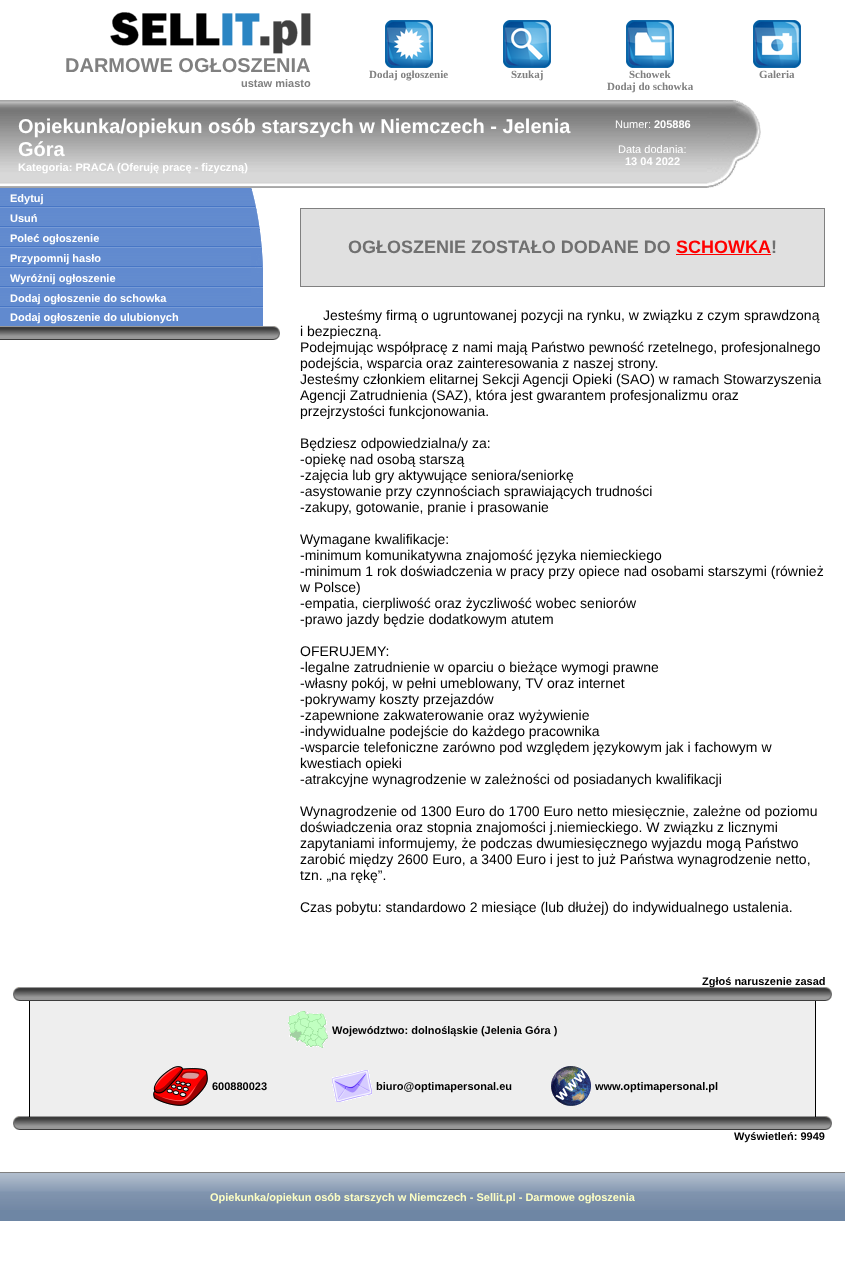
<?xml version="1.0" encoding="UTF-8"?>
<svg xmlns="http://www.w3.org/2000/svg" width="845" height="1269">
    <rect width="100%" height="100%" fill="#FFFFFF"/>
    <image x="110" y="12" width="201" height="42" href="img_01.png"/>
    <text x="65" y="72" font-family="Liberation Sans" font-size="20" font-weight="700" fill="#808080">DARMOWE OGŁOSZENIA</text>
    <text x="241" y="87" font-family="Liberation Sans" font-size="11" font-weight="700" fill="#808080">ustaw miasto</text>
    <image x="385" y="20" width="48" height="48" href="img_02.png"/>
    <text x="369" y="78" font-family="Liberation Serif" font-size="11" font-weight="700" fill="#808080">Dodaj ogłoszenie</text>
    <image x="503" y="20" width="48" height="48" href="img_03.png"/>
    <text x="511" y="78" font-family="Liberation Serif" font-size="11" font-weight="700" fill="#808080">Szukaj</text>
    <image x="626" y="20" width="48" height="48" href="img_04.png"/>
    <text x="629" y="78" font-family="Liberation Serif" font-size="11" font-weight="700" fill="#808080">Schowek</text>
    <text x="607" y="90" font-family="Liberation Serif" font-size="11" font-weight="700" fill="#808080">Dodaj do schowka</text>
    <image x="753" y="20" width="48" height="48" href="img_05.png"/>
    <text x="759" y="78" font-family="Liberation Serif" font-size="11" font-weight="700" fill="#808080">Galeria</text>
    <image x="0" y="100" width="707" height="88" href="img_06.png"/>
    <text font-family="Liberation Sans" font-size="20" font-weight="700" fill="#FFFFFF">
        <tspan x="18" y="133">Opiekunka/opiekun osób starszych w Niemczech - Jelenia</tspan>
        <tspan x="18" y="156">Góra</tspan>
    </text>
    <text x="18" y="171" font-family="Liberation Sans" font-size="11" font-weight="700" fill="#FFFFFF">Kategoria: PRACA</text>
    <text x="117" y="171" font-family="Liberation Sans" font-size="11" font-weight="700" fill="#FFFFFF">(Oferuję pracę - fizyczną)</text>
    <text x="615" y="128" font-family="Liberation Sans" font-size="11" fill="#FFFFFF">Numer:</text>
    <text x="654" y="128" font-family="Liberation Sans" font-size="11" font-weight="700" fill="#FFFFFF">205886</text>
    <text x="618" y="153" font-family="Liberation Sans" font-size="11" fill="#FFFFFF">Data dodania:</text>
    <text x="625" y="165" font-family="Liberation Sans" font-size="11" font-weight="700" fill="#FFFFFF">13 04 2022</text>
    <image x="707" y="100" width="54" height="88" href="img_07.png"/>
    <image x="0" y="188" width="251" height="20" href="img_08.png"/>
    <text x="10" y="202" font-family="Liberation Sans" font-size="11" font-weight="700" fill="#FFFFFF">Edytuj</text>
    <image x="251" y="188" width="5" height="20" href="img_09.png"/>
    <image x="0" y="208" width="251" height="20" href="img_08.png"/>
    <text x="10" y="222" font-family="Liberation Sans" font-size="11" font-weight="700" fill="#FFFFFF">Usuń</text>
    <image x="251" y="208" width="9" height="20" href="img_10.png"/>
    <image x="0" y="228" width="251" height="20" href="img_08.png"/>
    <text x="10" y="242" font-family="Liberation Sans" font-size="11" font-weight="700" fill="#FFFFFF">Poleć ogłoszenie</text>
    <image x="251" y="228" width="11" height="20" href="img_11.png"/>
    <image x="0" y="248" width="251" height="20" href="img_08.png"/>
    <text x="10" y="262" font-family="Liberation Sans" font-size="11" font-weight="700" fill="#FFFFFF">Przypomnij hasło</text>
    <image x="251" y="248" width="12" height="20" href="img_12.png"/>
    <image x="0" y="268" width="251" height="20" href="img_08.png"/>
    <text x="10" y="282" font-family="Liberation Sans" font-size="11" font-weight="700" fill="#FFFFFF">Wyróżnij ogłoszenie</text>
    <image x="251" y="268" width="12" height="20" href="img_13.png"/>
    <image x="0" y="288" width="251" height="20" href="img_08.png"/>
    <text x="10" y="302" font-family="Liberation Sans" font-size="11" font-weight="700" fill="#FFFFFF">Dodaj ogłoszenie do schowka</text>
    <image x="251" y="288" width="12" height="20" href="img_13.png"/>
    <rect x="0" y="308" width="263" height="18" fill="#618ACF"/>
    <text x="10" y="321" font-family="Liberation Sans" font-size="11" font-weight="700" fill="#FFFFFF">Dodaj ogłoszenie do ulubionych</text>
    <image x="0" y="326" width="263" height="14" href="img_14.png"/>
    <image x="263" y="326" width="17" height="14" href="img_15.png"/>
    <rect x="300.5" y="208.5" width="524" height="78" fill="#E0E0E0" stroke="#808080"/>
    <text x="348" y="253" font-family="Liberation Sans" font-size="18" font-weight="700" fill="#707070">OGŁOSZENIE ZOSTAŁO DODANE DO</text>
    <text x="676" y="253" font-family="Liberation Sans" font-size="18" font-weight="700" fill="#FF0000">SCHOWKA</text>
    <rect x="676" y="254" width="95" height="1" fill="#FF0000"/>
    <text x="771" y="253" font-family="Liberation Sans" font-size="18" font-weight="700" fill="#707070">!</text>
    <text x="323" y="320" font-family="Liberation Sans" font-size="14" fill="#000000">Jesteśmy firmą o ugruntowanej pozycji na rynku, w związku z czym sprawdzoną</text>
    <text font-family="Liberation Sans" font-size="14" fill="#000000">
        <tspan x="300" y="336">i bezpieczną.</tspan>
        <tspan x="300" y="352">Podejmując współpracę z nami mają Państwo pewność rzetelnego, profesjonalnego</tspan>
        <tspan x="300" y="368">podejścia, wsparcia oraz zainteresowania z naszej strony.</tspan>
        <tspan x="300" y="384">Jesteśmy członkiem elitarnej Sekcji Agencji Opieki (SAO) w ramach Stowarzyszenia</tspan>
        <tspan x="300" y="400">Agencji Zatrudnienia (SAZ), która jest gwarantem profesjonalizmu oraz</tspan>
        <tspan x="300" y="416">przejrzystości funkcjonowania.</tspan>
    </text>
    <text font-family="Liberation Sans" font-size="14" fill="#000000">
        <tspan x="300" y="448">Będziesz odpowiedzialna/y za:</tspan>
        <tspan x="300" y="464">-opiekę nad osobą starszą</tspan>
        <tspan x="300" y="480">-zajęcia lub gry aktywujące seniora/seniorkę</tspan>
        <tspan x="300" y="496">-asystowanie przy czynnościach sprawiających trudności</tspan>
        <tspan x="300" y="512">-zakupy, gotowanie, pranie i prasowanie</tspan>
    </text>
    <text font-family="Liberation Sans" font-size="14" fill="#000000">
        <tspan x="300" y="544">Wymagane kwalifikacje:</tspan>
        <tspan x="300" y="560">-minimum komunikatywna znajomość języka niemieckiego</tspan>
        <tspan x="300" y="576">-minimum 1 rok doświadczenia w pracy przy opiece nad osobami starszymi (również</tspan>
        <tspan x="300" y="592">w Polsce)</tspan>
        <tspan x="300" y="608">-empatia, cierpliwość oraz życzliwość wobec seniorów</tspan>
        <tspan x="300" y="624">-prawo jazdy będzie dodatkowym atutem</tspan>
    </text>
    <text font-family="Liberation Sans" font-size="14" fill="#000000">
        <tspan x="300" y="656">OFERUJEMY:</tspan>
        <tspan x="300" y="672">-legalne zatrudnienie w oparciu o bieżące wymogi prawne</tspan>
        <tspan x="300" y="688">-własny pokój, w pełni umeblowany, TV oraz internet</tspan>
        <tspan x="300" y="704">-pokrywamy koszty przejazdów</tspan>
        <tspan x="300" y="720">-zapewnione zakwaterowanie oraz wyżywienie</tspan>
        <tspan x="300" y="736">-indywidualne podejście do każdego pracownika</tspan>
        <tspan x="300" y="752">-wsparcie telefoniczne zarówno pod względem językowym jak i fachowym w</tspan>
        <tspan x="300" y="768">kwestiach opieki</tspan>
        <tspan x="300" y="784">-atrakcyjne wynagrodzenie w zależności od posiadanych kwalifikacji</tspan>
    </text>
    <text font-family="Liberation Sans" font-size="14" fill="#000000">
        <tspan x="300" y="816">Wynagrodzenie od 1300 Euro do 1700 Euro netto miesięcznie, zależne od poziomu</tspan>
        <tspan x="300" y="832">doświadczenia oraz stopnia znajomości j.niemieckiego. W związku z licznymi</tspan>
        <tspan x="300" y="848">zapytaniami informujemy, że podczas dwumiesięcznego wyjazdu mogą Państwo</tspan>
        <tspan x="300" y="864">zarobić między 2600 Euro, a 3400 Euro i jest to już Państwa wynagrodzenie netto,</tspan>
        <tspan x="300" y="880">tzn. „na rękę”.</tspan>
    </text>
    <text x="300" y="912" font-family="Liberation Sans" font-size="14" fill="#000000">Czas pobytu: standardowo 2 miesiące (lub dłużej) do indywidualnego ustalenia.</text>
    <image x="30" y="987" width="785" height="14" href="img_17.png"/>
    <image x="815" y="987" width="17" height="14" href="img_15.png"/>
    <text x="702" y="985" font-family="Liberation Sans" font-size="11" font-weight="700" fill="#000000">Zgłoś naruszenie zasad</text>
    <image x="13" y="987" width="17" height="14" href="img_16.png"/>
    <rect x="30" y="1001" width="785" height="115" fill="#EEEEEE"/>
    <image x="815" y="1116" width="17" height="14" href="img_15.png"/>
    <rect x="815" y="1001" width="1" height="116" fill="#000000"/>
    <image x="13" y="1116" width="17" height="14" href="img_16.png"/>
    <rect x="29" y="1001" width="1" height="116" fill="#000000"/>
    <image x="288" y="1011" width="40" height="37" href="img_18.png"/>
    <text x="332" y="1034" font-family="Liberation Sans" font-size="11" font-weight="700" fill="#000000">Województwo: dolnośląskie (Jelenia Góra )</text>
    <image x="153" y="1066" width="55" height="40" href="img_19.png"/>
    <text x="212" y="1090" font-family="Liberation Sans" font-size="11" font-weight="700" fill="#000000">600880023</text>
    <image x="332" y="1070" width="40" height="32" href="img_20.png"/>
    <text x="376" y="1090" font-family="Liberation Sans" font-size="11" font-weight="700" fill="#000000">biuro@optimapersonal.eu</text>
    <image x="551" y="1066" width="40" height="40" href="img_21.png"/>
    <text x="595" y="1090" font-family="Liberation Sans" font-size="11" font-weight="700" fill="#000000">www.optimapersonal.pl</text>
    <image x="30" y="1116" width="785" height="14" href="img_17.png"/>
    <text x="734" y="1140" font-family="Liberation Sans" font-size="11" font-weight="700" fill="#000000">Wyświetleń: 9949</text>
    <rect x="0" y="1172" width="845" height="1" fill="#808080"/>
    <rect x="0" y="1210" width="845" height="11" fill="#6E86A4"/>
    <image x="0" y="1173" width="845" height="37" href="img_22.png"/>
    <text x="210" y="1201" font-family="Liberation Sans" font-size="11" font-weight="700" fill="#FCFEC4">Opiekunka/opiekun osób starszych w Niemczech - Sellit.pl - Darmowe ogłoszenia</text>
</svg>
